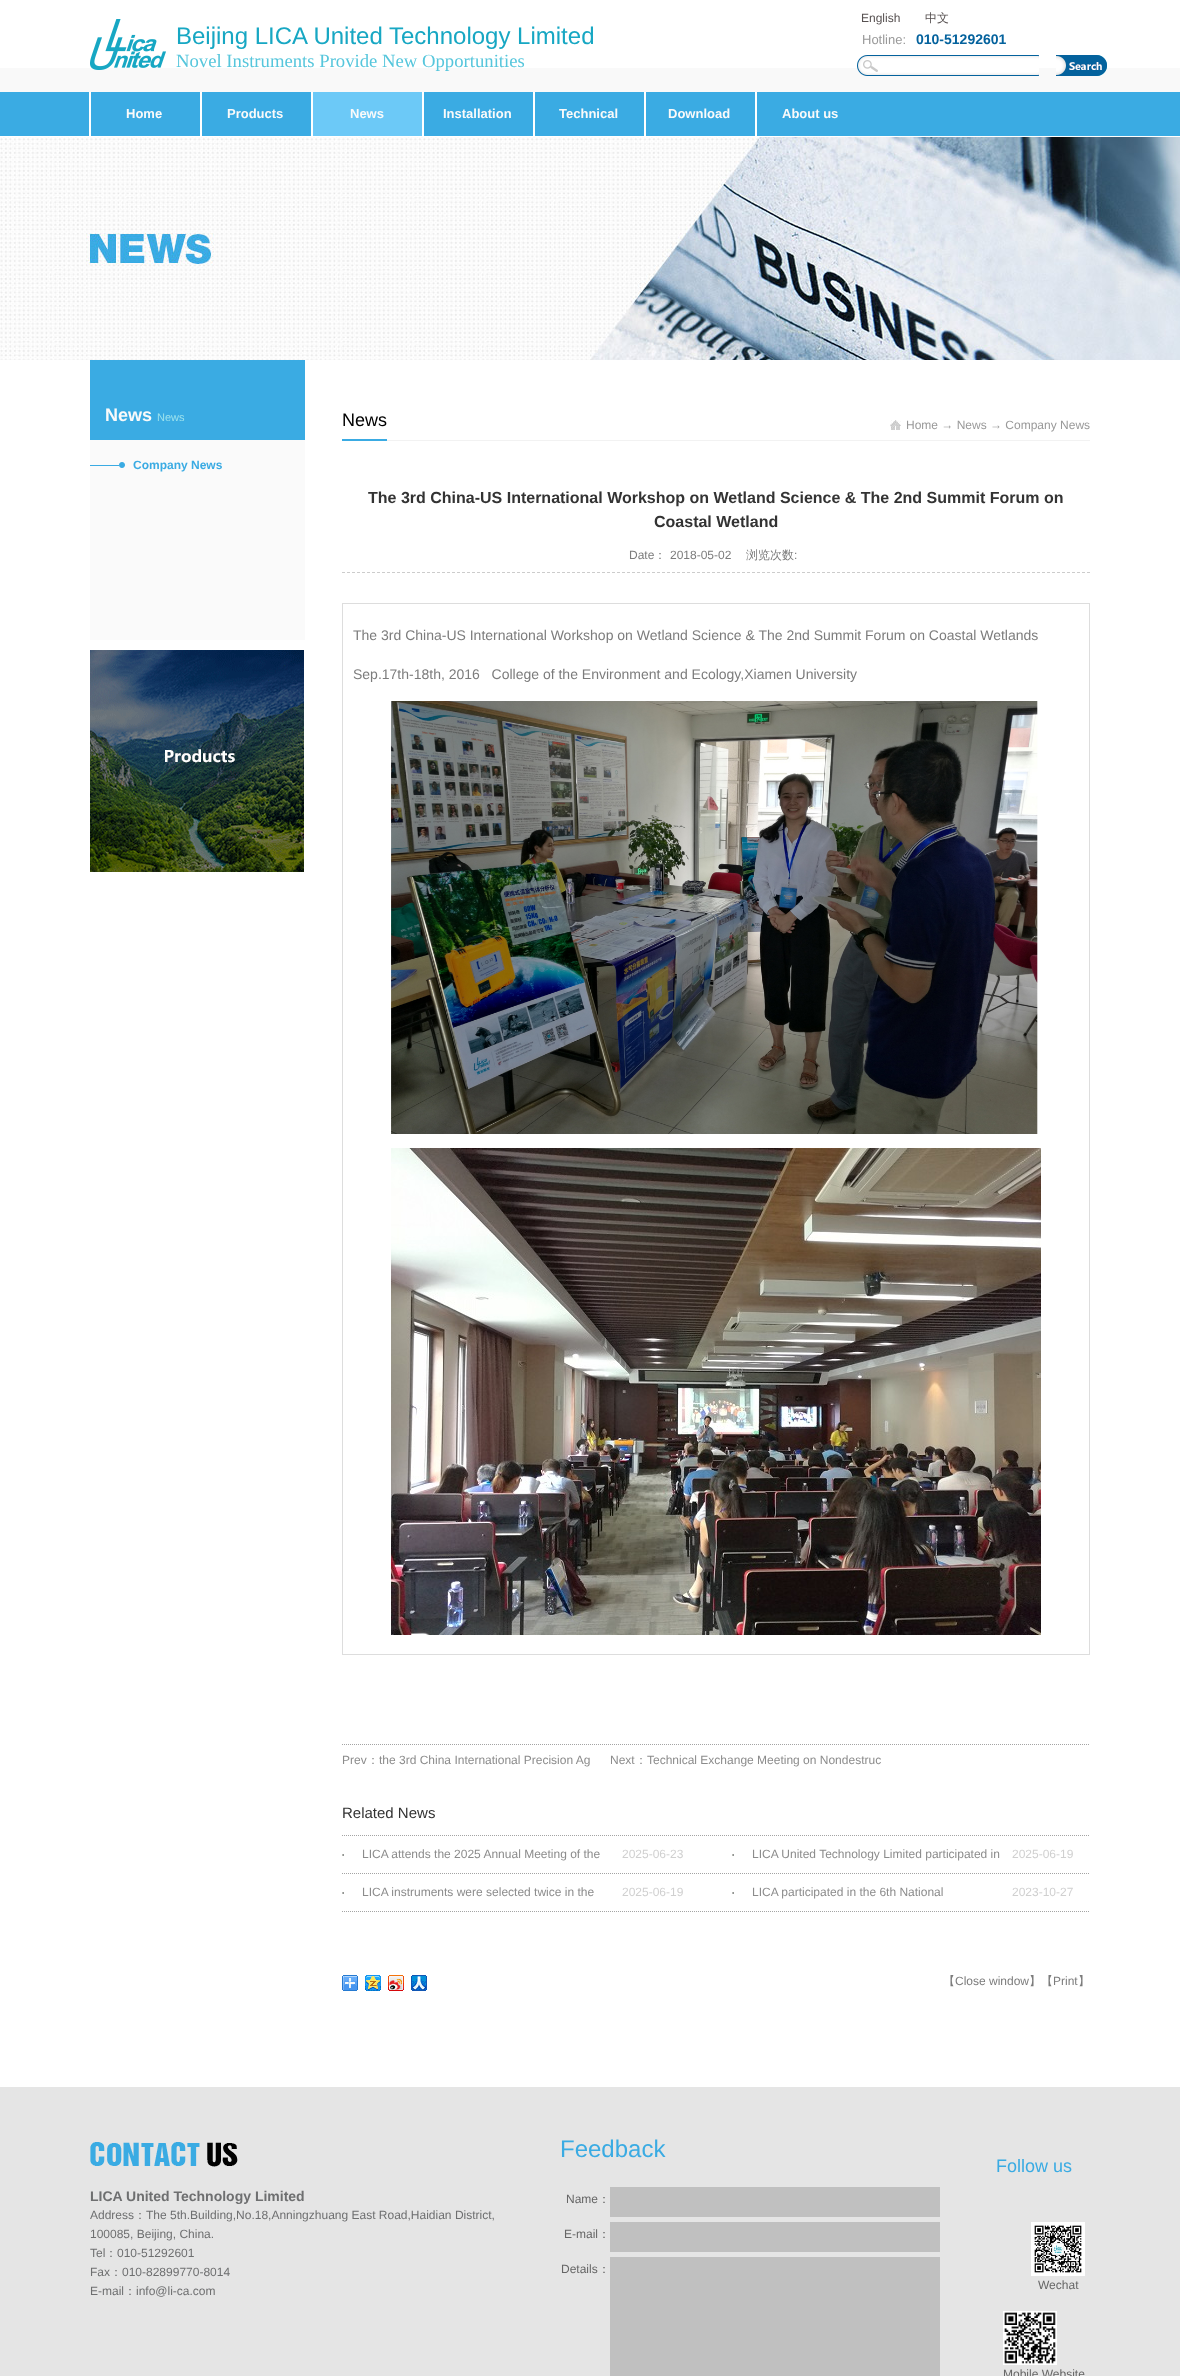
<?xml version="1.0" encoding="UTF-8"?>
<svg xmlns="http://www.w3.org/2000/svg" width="1180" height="2376">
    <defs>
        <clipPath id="clip1"><rect x="342" y="1830" width="748" height="119"/></clipPath>
    </defs>
    <rect width="100%" height="100%" fill="#FFFFFF"/>
    <rect x="0" y="68" width="1180" height="24" fill="#F9F9F9"/>
    <image x="90" y="19" width="76" height="51" href="img_01.png"/>
    <text x="176" y="44" font-family="Liberation Sans" font-size="24" fill="#17A7C3">Beijing LICA United Technology Limited</text>
    <text x="861" y="22" font-family="Liberation Sans" font-size="12" fill="#575151">English</text>
    <text x="925" y="22" font-family="WenQuanYi Zen Hei" font-size="12" font-weight="500" fill="#575151">中文</text>
    <text x="862" y="44" font-family="Liberation Sans" font-size="13" fill="#999999">Hotline:</text>
    <text x="916" y="44" font-family="Liberation Sans" font-size="14" font-weight="700" fill="#04629D">010-51292601</text>
    <text x="176" y="67" font-family="Liberation Serif" font-size="18.7" fill="#56C6DC">Novel Instruments Provide New Opportunities</text>
    <image x="857" y="55" width="182" height="21" href="img_02.png"/>
    <image x="1056" y="55" width="51" height="21" href="img_03.png"/>
    <rect x="0" y="92" width="1180" height="44" fill="#3AABE3"/>
    <rect x="89" y="92" width="2" height="44" fill="#FFFFFF"/>
    <text x="126" y="118" font-family="Liberation Sans" font-size="13" font-weight="700" fill="#FAFAFA">Home</text>
    <rect x="200" y="92" width="2" height="44" fill="#FFFFFF"/>
    <text x="227" y="118" font-family="Liberation Sans" font-size="13" font-weight="700" fill="#FAFAFA">Products</text>
    <image x="311" y="92" width="111" height="44" href="img_04.png"/>
    <text x="350" y="118" font-family="Liberation Sans" font-size="13" font-weight="700" fill="#FAFAFA">News</text>
    <rect x="422" y="92" width="2" height="44" fill="#FFFFFF"/>
    <text x="443" y="118" font-family="Liberation Sans" font-size="13" font-weight="700" fill="#FAFAFA">Installation</text>
    <rect x="533" y="92" width="2" height="44" fill="#FFFFFF"/>
    <text x="559" y="118" font-family="Liberation Sans" font-size="13" font-weight="700" fill="#FAFAFA">Technical</text>
    <rect x="644" y="92" width="2" height="44" fill="#FFFFFF"/>
    <text x="668" y="118" font-family="Liberation Sans" font-size="13" font-weight="700" fill="#FAFAFA">Download</text>
    <rect x="755" y="92" width="2" height="44" fill="#FFFFFF"/>
    <text x="782" y="118" font-family="Liberation Sans" font-size="13" font-weight="700" fill="#FAFAFA">About us</text>
    <image x="0" y="137" width="1180" height="223" href="img_05.png"/>
    <rect x="90" y="360" width="215" height="80" fill="#3AABE3"/>
    <text x="105" y="421" font-family="Liberation Sans" font-size="18" font-weight="700" fill="#FAFAFA">News</text>
    <text x="157" y="421" font-family="Liberation Sans" font-size="11" fill="#9DE2ED">News</text>
    <rect x="90" y="440" width="215" height="200" fill="#FAFAFA"/>
    <image x="90" y="462" width="35" height="6" href="img_06.png"/>
    <text x="133" y="469" font-family="Liberation Sans" font-size="12" font-weight="700" fill="#3AABE3">Company News</text>
    <image x="90" y="650" width="214" height="222" href="img_07.png"/>
    <rect x="387" y="440" width="703" height="1" fill="#F2F2F2"/>
    <rect x="342" y="439" width="45" height="2" fill="#3AABE3"/>
    <text x="342" y="426" font-family="Liberation Sans" font-size="18" fill="#000000">News</text>
    <image x="890" y="420" width="11" height="10" href="img_08.png"/>
    <text x="906" y="429" font-family="Liberation Sans" font-size="12" fill="#999999">Home → News → Company News</text>
    <path d="M 342 572.5 H 1090" fill="none" stroke="#CCCCCC" stroke-dasharray="3 2"/>
    <text x="368" y="503" font-family="Liberation Sans" font-size="16" font-weight="700" fill="#333333">The 3rd China-US International Workshop on Wetland Science &amp; The 2nd Summit Forum on</text>
    <text x="654" y="527" font-family="Liberation Sans" font-size="16" font-weight="700" fill="#333333">Coastal Wetland</text>
    <text x="629" y="559" font-family="Liberation Sans" font-size="12" fill="#7C7C7C">Date</text>
    <text x="654" y="559" font-family="WenQuanYi Zen Hei" font-size="12" font-weight="500" fill="#7C7C7C">：</text>
    <text x="670" y="559" font-family="Liberation Sans" font-size="12" fill="#7C7C7C">2018-05-02</text>
    <text x="746" y="559" font-family="WenQuanYi Zen Hei" font-size="12" font-weight="500" fill="#7C7C7C">浏览次数</text>
    <text x="794" y="559" font-family="Liberation Sans" font-size="12" fill="#7C7C7C">:</text>
    <rect x="342" y="603" width="748" height="1" fill="#DDDDDD"/>
    <rect x="1089" y="603" width="1" height="1052" fill="#DDDDDD"/>
    <rect x="342" y="1654" width="748" height="1" fill="#DDDDDD"/>
    <rect x="342" y="603" width="1" height="1052" fill="#DDDDDD"/>
    <text x="353" y="640" font-family="Liberation Sans" font-size="14" fill="#7C7C7C">The 3rd China-US International Workshop on Wetland Science &amp; The 2nd Summit Forum on Coastal Wetlands</text>
    <text x="353" y="679" font-family="Liberation Sans" font-size="14" fill="#7C7C7C" xml:space="preserve">Sep.17th-18th, 2016   College of the Environment and Ecology,Xiamen University</text>
    <image x="391" y="701" width="647" height="433" href="img_09.png"/>
    <image x="391" y="1148" width="650" height="487" href="img_10.png"/>
    <path d="M 342 1744.5 H 1090" fill="none" stroke="#A4A4A4" stroke-dasharray="1 1"/>
    <text x="342" y="1764" font-family="Liberation Sans" font-size="12" fill="#8C8C8C">Prev</text>
    <text x="367" y="1764" font-family="WenQuanYi Zen Hei" font-size="12" font-weight="500" fill="#8C8C8C">：</text>
    <text x="379" y="1764" font-family="Liberation Sans" font-size="12" fill="#8C8C8C">the 3rd China International Precision Ag</text>
    <text x="610" y="1764" font-family="Liberation Sans" font-size="12" fill="#8C8C8C">Next</text>
    <text x="635" y="1764" font-family="WenQuanYi Zen Hei" font-size="12" font-weight="500" fill="#8C8C8C">：</text>
    <text x="647" y="1764" font-family="Liberation Sans" font-size="12" fill="#8C8C8C">Technical Exchange Meeting on Nondestruc</text>
    <text x="342" y="1818" font-family="Liberation Sans" font-size="15" fill="#333333">Related News</text>
    <path d="M 342 1835.5 H 732" fill="none" stroke="#A4A4A4" stroke-dasharray="1 1"/>
    <path d="M 342 1873.5 H 732" fill="none" stroke="#A4A4A4" stroke-dasharray="1 1"/>
    <image x="342" y="1854" width="2" height="2" href="img_11.png"/>
    <text x="362" y="1858" font-family="Liberation Sans" font-size="12" fill="#8C8C8C">LICA attends the 2025 Annual Meeting of the</text>
    <text x="622" y="1858" font-family="Liberation Sans" font-size="12" fill="#D0D0D0">2025-06-23</text>
    <g clip-path="url(#clip1)">
        <path d="M 732 1835.5 H 1122" fill="none" stroke="#A4A4A4" stroke-dasharray="1 1"/>
        <path d="M 732 1873.5 H 1122" fill="none" stroke="#A4A4A4" stroke-dasharray="1 1"/>
    </g>
    <image x="732" y="1854" width="2" height="2" href="img_11.png"/>
    <text x="752" y="1858" font-family="Liberation Sans" font-size="12" fill="#8C8C8C">LICA United Technology Limited participated in</text>
    <text x="1012" y="1858" font-family="Liberation Sans" font-size="12" fill="#D0D0D0">2025-06-19</text>
    <path d="M 342 1911.5 H 732" fill="none" stroke="#A4A4A4" stroke-dasharray="1 1"/>
    <image x="342" y="1892" width="2" height="2" href="img_11.png"/>
    <text x="362" y="1896" font-family="Liberation Sans" font-size="12" fill="#8C8C8C">LICA instruments were selected twice in the</text>
    <text x="622" y="1896" font-family="Liberation Sans" font-size="12" fill="#D0D0D0">2025-06-19</text>
    <g clip-path="url(#clip1)">
        <path d="M 732 1911.5 H 1122" fill="none" stroke="#A4A4A4" stroke-dasharray="1 1"/>
    </g>
    <image x="732" y="1892" width="2" height="2" href="img_11.png"/>
    <text x="752" y="1896" font-family="Liberation Sans" font-size="12" fill="#8C8C8C">LICA participated in the 6th National</text>
    <text x="1012" y="1896" font-family="Liberation Sans" font-size="12" fill="#D0D0D0">2023-10-27</text>
    <image x="342" y="1975" width="16" height="16" href="img_12.png"/>
    <image x="365" y="1975" width="16" height="16" href="img_13.png"/>
    <image x="388" y="1975" width="16" height="16" href="img_14.png"/>
    <image x="411" y="1975" width="16" height="16" href="img_15.png"/>
    <text x="943" y="1985" font-family="WenQuanYi Zen Hei" font-size="12" font-weight="500" fill="#7C7C7C">【</text>
    <text x="955" y="1985" font-family="Liberation Sans" font-size="12" fill="#7C7C7C">Close window</text>
    <text x="1029" y="1985" font-family="WenQuanYi Zen Hei" font-size="12" font-weight="500" fill="#7C7C7C">】【</text>
    <text x="1053" y="1985" font-family="Liberation Sans" font-size="12" fill="#7C7C7C">Print</text>
    <text x="1078" y="1985" font-family="WenQuanYi Zen Hei" font-size="12" font-weight="500" fill="#7C7C7C">】</text>
    <rect x="0" y="2087" width="1180" height="289" fill="#E5E5E5"/>
    <text x="560" y="2157" font-family="Liberation Sans" font-size="24" fill="#3AABE3">Feedback</text>
    <image x="90" y="2142" width="148" height="25" href="img_16.png"/>
    <text x="90" y="2201" font-family="Liberation Sans" font-size="14" font-weight="700" fill="#6E6F70">LICA United Technology Limited</text>
    <text x="90" y="2219" font-family="Liberation Sans" font-size="12" fill="#6E6F70">Address</text>
    <text x="134" y="2219" font-family="WenQuanYi Zen Hei" font-size="12" font-weight="500" fill="#6E6F70">：</text>
    <text x="146" y="2219" font-family="Liberation Sans" font-size="12" fill="#6E6F70">The 5th.Building,No.18,Anningzhuang East Road,Haidian District,</text>
    <text font-family="Liberation Sans" font-size="12" fill="#6E6F70">
        <tspan x="90" y="2238">100085, Beijing, China.</tspan>
        <tspan x="90" y="2257">Tel</tspan>
    </text>
    <text x="105" y="2257" font-family="WenQuanYi Zen Hei" font-size="12" font-weight="500" fill="#6E6F70">：</text>
    <text x="117" y="2257" font-family="Liberation Sans" font-size="12" fill="#6E6F70">010-51292601</text>
    <text x="90" y="2276" font-family="Liberation Sans" font-size="12" fill="#6E6F70">Fax</text>
    <text x="110" y="2276" font-family="WenQuanYi Zen Hei" font-size="12" font-weight="500" fill="#6E6F70">：</text>
    <text x="122" y="2276" font-family="Liberation Sans" font-size="12" fill="#6E6F70">010-82899770-8014</text>
    <text x="90" y="2295" font-family="Liberation Sans" font-size="12" fill="#6E6F70">E-mail</text>
    <text x="124" y="2295" font-family="WenQuanYi Zen Hei" font-size="12" font-weight="500" fill="#6E6F70">：</text>
    <text x="136" y="2295" font-family="Liberation Sans" font-size="12" fill="#6E6F70">info@li-ca.com</text>
    <text x="566" y="2203" font-family="Liberation Sans" font-size="12" fill="#666666">Name</text>
    <text x="598" y="2203" font-family="WenQuanYi Zen Hei" font-size="12" font-weight="500" fill="#666666">：</text>
    <rect x="610" y="2187" width="330" height="30" fill="#C0C0C0"/>
    <text x="564" y="2238" font-family="Liberation Sans" font-size="12" fill="#666666">E-mail</text>
    <text x="598" y="2238" font-family="WenQuanYi Zen Hei" font-size="12" font-weight="500" fill="#666666">：</text>
    <rect x="610" y="2222" width="330" height="30" fill="#C0C0C0"/>
    <text x="561" y="2273" font-family="Liberation Sans" font-size="12" fill="#666666">Details</text>
    <text x="598" y="2273" font-family="WenQuanYi Zen Hei" font-size="12" font-weight="500" fill="#666666">：</text>
    <rect x="610" y="2257" width="330" height="119" fill="#C0C0C0"/>
    <text x="996" y="2172" font-family="Liberation Sans" font-size="18" fill="#3AABE3">Follow us</text>
    <image x="1031" y="2222" width="54" height="54" href="img_17.png"/>
    <text x="1038" y="2289" font-family="Liberation Sans" font-size="12" fill="#666666">Wechat</text>
    <image x="1003" y="2311" width="54" height="54" href="img_18.png"/>
    <text x="1003" y="2378" font-family="Liberation Sans" font-size="12" fill="#666666">Mobile Website</text>
</svg>
